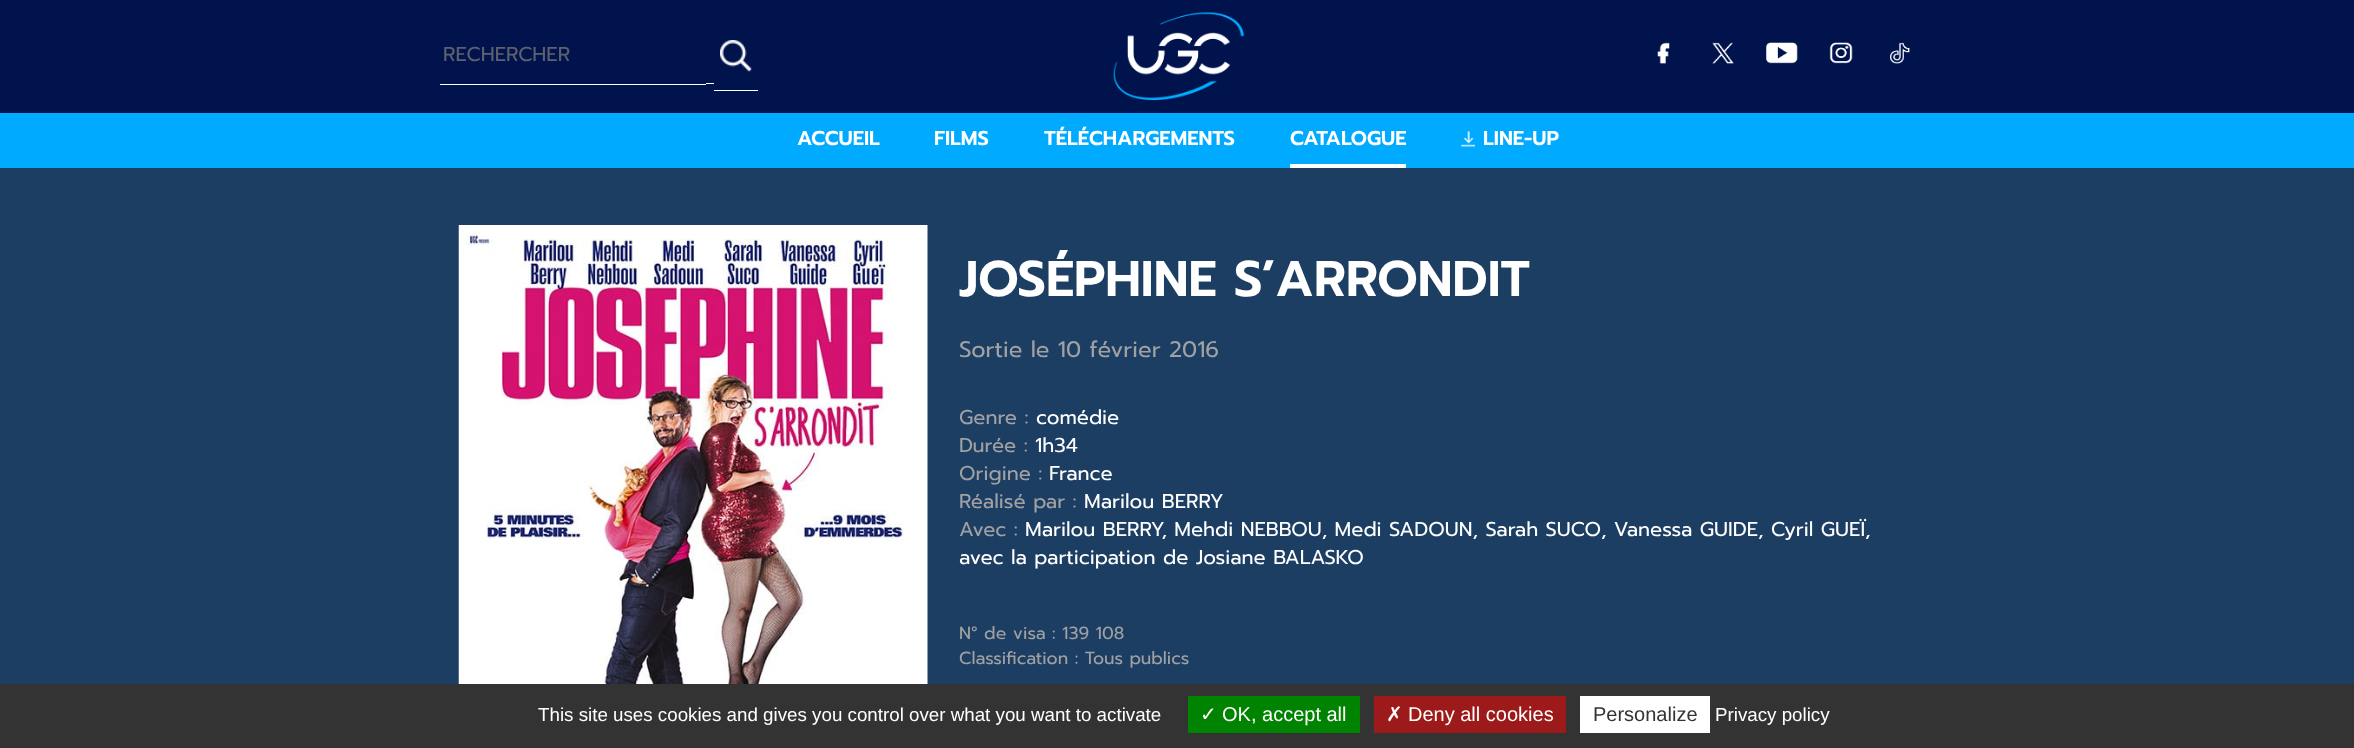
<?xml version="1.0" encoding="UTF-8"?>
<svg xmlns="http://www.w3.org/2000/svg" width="2354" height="748">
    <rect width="100%" height="100%" fill="#1C3E63"/>
    <rect x="0" y="0" width="2354" height="113" fill="#00134D"/>
    <rect x="440" y="84" width="266" height="1" fill="#FFFFFF"/>
    <rect x="706" y="83" width="8" height="1" fill="#FFFFFF"/>
    <rect x="714" y="90" width="44" height="1" fill="#FFFFFF"/>
    <text x="443" y="61" font-family="Prompt" font-size="20" fill="#5E616D">RECHERCHER</text>
    <image x="720" y="40" width="32" height="32" href="img_01.png"/>
    <image x="1113" y="12" width="131" height="88" href="img_02.png"/>
    <image x="1657" y="42" width="13" height="22" href="img_03.png"/>
    <image x="1712" y="42" width="22" height="22" href="img_04.png"/>
    <image x="1766" y="42" width="32" height="22" href="img_05.png"/>
    <image x="1829" y="42" width="24" height="22" href="img_06.png"/>
    <image x="1890" y="42" width="20" height="22" href="img_07.png"/>
    <rect x="0" y="113" width="2354" height="55" fill="#00AAFF"/>
    <text x="797" y="145" font-family="Prompt" font-size="20" font-weight="600" fill="#FFFFFF">ACCUEIL</text>
    <text x="934" y="145" font-family="Prompt" font-size="20" font-weight="600" fill="#FFFFFF">FILMS</text>
    <text x="1044" y="145" font-family="Prompt" font-size="20" font-weight="600" fill="#FFFFFF">TÉLÉCHARGEMENTS</text>
    <rect x="1290" y="164" width="116" height="4" fill="#FFFFFF"/>
    <text x="1290" y="145" font-family="Prompt" font-size="20" font-weight="600" fill="#FFFFFF">CATALOGUE</text>
    <image x="1461" y="131" width="14" height="16" href="img_08.png"/>
    <text x="1483" y="145" font-family="Prompt" font-size="20" font-weight="600" fill="#FFFFFF">LINE-UP</text>
    <image x="458" y="225" width="470" height="459" href="img_09.png"/>
    <text x="959" y="296" font-family="Prompt" font-size="50" font-weight="600" fill="#FFFFFF">JOSÉPHINE S’ARRONDIT</text>
    <text x="959" y="357" font-family="Prompt" font-size="22.5" fill="#A0A1A3">Sortie le 10 février 2016</text>
    <text x="959" y="424" font-family="Prompt" font-size="20" fill="#A0A1A3">Genre :</text>
    <text x="1036" y="424" font-family="Prompt" font-size="20" fill="#FFFFFF">comédie</text>
    <text x="959" y="452" font-family="Prompt" font-size="20" fill="#A0A1A3">Durée :</text>
    <text x="1035" y="452" font-family="Prompt" font-size="20" fill="#FFFFFF">1h34</text>
    <text x="959" y="480" font-family="Prompt" font-size="20" fill="#A0A1A3">Origine :</text>
    <text x="1049" y="480" font-family="Prompt" font-size="20" fill="#FFFFFF">France</text>
    <text x="959" y="508" font-family="Prompt" font-size="20" fill="#A0A1A3">Réalisé par :</text>
    <text x="1084" y="508" font-family="Prompt" font-size="20" fill="#FFFFFF">Marilou BERRY</text>
    <text x="959" y="536" font-family="Prompt" font-size="20" fill="#A0A1A3">Avec :</text>
    <text x="1025" y="536" font-family="Prompt" font-size="20" fill="#FFFFFF">Marilou BERRY, Mehdi NEBBOU, Medi SADOUN, Sarah SUCO, Vanessa GUIDE, Cyril GUEÏ,</text>
    <text x="959" y="564" font-family="Prompt" font-size="20" fill="#FFFFFF">avec la participation de Josiane BALASKO</text>
    <text font-family="Prompt" font-size="17.5" fill="#A0A1A3">
        <tspan x="959" y="639">N° de visa : 139 108</tspan>
        <tspan x="959" y="664">Classification : Tous publics</tspan>
    </text>
    <rect x="0" y="684" width="2354" height="64" fill="#333333"/>
    <text x="538" y="721" font-family="Liberation Sans" font-size="18.75" fill="#FFFFFF">This site uses cookies and gives you control over what you want to activate</text>
    <rect x="1188" y="696" width="172" height="37" fill="#008300"/>
    <text x="1200" y="721" font-family="DejaVu Sans" font-size="20" fill="#FFFFFF">✓</text>
    <text x="1222" y="721" font-family="Liberation Sans" font-size="20" fill="#FFFFFF">OK, accept all</text>
    <rect x="1374" y="696" width="192" height="37" fill="#9C1A1A"/>
    <text x="1386" y="721" font-family="DejaVu Sans" font-size="20" fill="#FFFFFF">✗</text>
    <text x="1408" y="721" font-family="Liberation Sans" font-size="20" fill="#FFFFFF">Deny all cookies</text>
    <rect x="1580" y="696" width="130" height="37" fill="#FFFFFF"/>
    <text x="1593" y="721" font-family="Liberation Sans" font-size="20" fill="#333333">Personalize</text>
    <text x="1715" y="721" font-family="Liberation Sans" font-size="18.75" fill="#FFFFFF">Privacy policy</text>
</svg>
